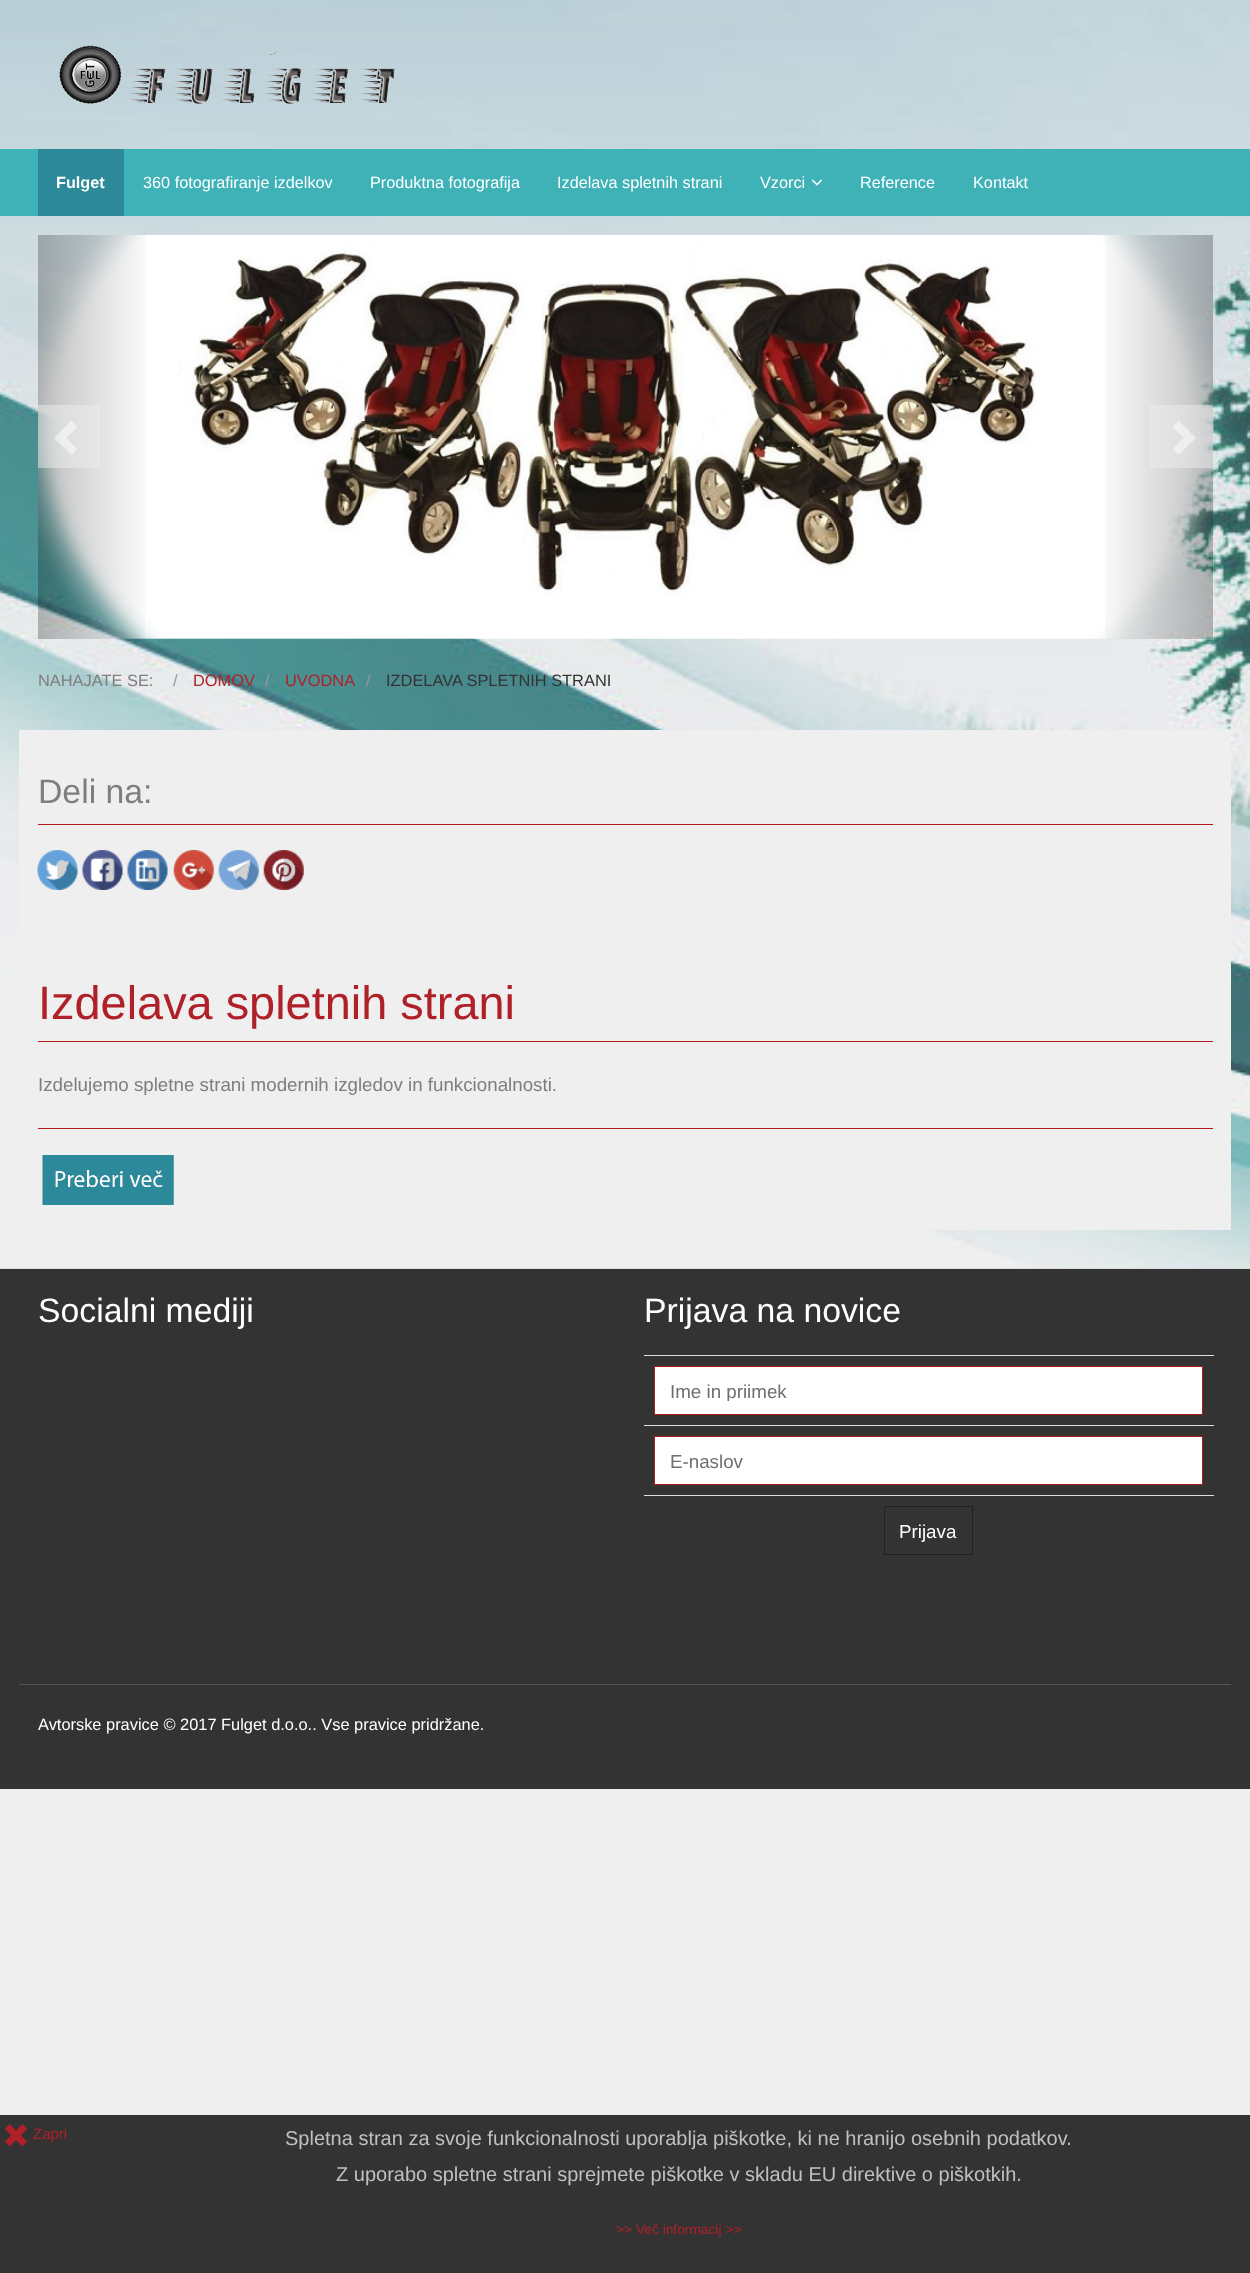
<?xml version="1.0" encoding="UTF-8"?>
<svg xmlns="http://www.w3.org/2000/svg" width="1250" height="2273">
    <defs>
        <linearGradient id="g1" gradientUnits="userSpaceOnUse" x1="37" y1="437" x2="155" y2="437"><stop offset="0" stop-color="#000000" stop-opacity="0.25"/><stop offset="1" stop-color="#000000" stop-opacity="0"/></linearGradient>
        <linearGradient id="g2" gradientUnits="userSpaceOnUse" x1="1095" y1="437" x2="1213" y2="437"><stop offset="0" stop-color="#000000" stop-opacity="0"/><stop offset="1" stop-color="#000000" stop-opacity="0.25"/></linearGradient>
        <clipPath id="clip1"><rect x="670" y="1380" width="516" height="21"/></clipPath>
    </defs>
    <rect width="100%" height="100%" fill="#FFFFFF"/>
    <image x="0" y="0" width="1250" height="2115" href="img_01.png"/>
    <image x="59" y="45" width="336" height="59" href="img_02.png"/>
    <rect x="0" y="149" width="1250" height="67" fill="#3FB2B8"/>
    <rect x="38" y="149" width="86" height="67" fill="#2C8999"/>
    <text x="56" y="188" font-family="Arimo" font-size="16.25" font-weight="700" fill="#FFFFFF">Fulget</text>
    <text x="143" y="188" font-family="Arimo" font-size="16.25" fill="#FFFFFF">360 fotografiranje izdelkov</text>
    <text x="370" y="188" font-family="Arimo" font-size="16.25" fill="#FFFFFF">Produktna fotografija</text>
    <text x="557" y="188" font-family="Arimo" font-size="16.25" fill="#FFFFFF">Izdelava spletnih strani</text>
    <text x="760" y="188" font-family="Arimo" font-size="16.25" fill="#FFFFFF">Vzorci</text>
    <image x="812" y="179" width="10" height="7" href="img_03.png"/>
    <text x="860" y="188" font-family="Arimo" font-size="16.25" fill="#FFFFFF">Reference</text>
    <text x="973" y="188" font-family="Arimo" font-size="16.25" fill="#FFFFFF">Kontakt</text>
    <image x="38" y="235" width="1175" height="404" href="img_04.png"/>
    <rect x="38" y="235" width="107" height="404" fill="url(#g1)"/>
    <rect x="38" y="405" width="62" height="63" fill="#EEEEEE" fill-opacity="0.5"/>
    <path d="M 77.5 427 L 66.5 438 L 77.5 449 L 71.5 455 L 54 438 L 71.5 420.5 Z" fill="#FFFFFF" fill-opacity="0.5"/>
    <rect x="1105" y="235" width="108" height="404" fill="url(#g2)"/>
    <rect x="1150" y="405" width="63" height="63" fill="#EEEEEE" fill-opacity="0.5"/>
    <path d="M 1196 438 L 1178.5 455 L 1172.5 449 L 1183.5 438 L 1172.5 427 L 1178.5 420.5 Z" fill="#FFFFFF" fill-opacity="0.5"/>
    <text x="38" y="686" font-family="Arimo" font-size="16.4" fill="#807D7D">NAHAJATE SE:</text>
    <text x="173" y="686" font-family="Arimo" font-size="16.4" fill="#999999">/</text>
    <text x="193" y="686" font-family="Arimo" font-size="16.4" fill="#B02029">DOMOV</text>
    <text x="265" y="686" font-family="Arimo" font-size="16.4" fill="#999999">/</text>
    <text x="285" y="686" font-family="Arimo" font-size="16.4" fill="#B02029">UVODNA</text>
    <text x="366" y="686" font-family="Arimo" font-size="16.4" fill="#999999">/</text>
    <text x="386" y="686" font-family="Arimo" font-size="16.4" fill="#333333">IZDELAVA SPLETNIH STRANI</text>
    <rect x="19" y="730" width="1212" height="500" fill="#EFEFEF"/>
    <rect x="38" y="824" width="1175" height="1" fill="#B31919"/>
    <text x="38" y="803" font-family="Arimo" font-size="33.75" fill="#807D7D">Deli na:</text>
    <image x="37" y="850" width="41" height="40" href="img_05.png"/>
    <image x="82" y="850" width="41" height="40" href="img_06.png"/>
    <image x="127" y="850" width="41" height="40" href="img_07.png"/>
    <image x="173" y="850" width="41" height="40" href="img_08.png"/>
    <image x="218" y="850" width="41" height="40" href="img_09.png"/>
    <image x="263" y="850" width="41" height="40" href="img_10.png"/>
    <rect x="38" y="1041" width="1175" height="1" fill="#B31919"/>
    <text x="38" y="1019" font-family="Arimo" font-size="46.9" fill="#B02029">Izdelava spletnih strani</text>
    <text x="38" y="1091" font-family="Arimo" font-size="18.75" fill="#807D7D">Izdelujemo spletne strani modernih izgledov in funkcionalnosti.</text>
    <rect x="38" y="1128" width="1175" height="1" fill="#B31919"/>
    <image x="42" y="1155" width="132" height="50" href="img_11.png"/>
    <rect x="0" y="1269" width="1250" height="520" fill="#333333"/>
    <rect x="0" y="1268" width="1250" height="1" fill="#DDDDDD"/>
    <text x="38" y="1322" font-family="Arimo" font-size="33.75" fill="#FFFFFF">Socialni mediji</text>
    <text x="644" y="1322" font-family="Arimo" font-size="33.75" fill="#FFFFFF">Prijava na novice</text>
    <rect x="644" y="1355" width="570" height="1" fill="#DDDDDD"/>
    <rect x="654.5" y="1366.5" width="548" height="48" fill="#FFFFFF" stroke="#B31919"/>
    <g clip-path="url(#clip1)">
        <text x="670" y="1398" font-family="Arimo" font-size="18.75" fill="#6F6F6F">Ime in priimek</text>
    </g>
    <rect x="644" y="1425" width="570" height="1" fill="#DDDDDD"/>
    <rect x="654.5" y="1436.5" width="548" height="48" fill="#FFFFFF" stroke="#B31919"/>
    <text x="670" y="1468" font-family="Arimo" font-size="18.75" fill="#6F6F6F">E-naslov</text>
    <rect x="644" y="1495" width="570" height="1" fill="#DDDDDD"/>
    <rect x="884.5" y="1506.5" width="88" height="48" fill="none" stroke="#212121"/>
    <text x="899" y="1538" font-family="Arimo" font-size="18.75" fill="#FFFFFF">Prijava</text>
    <rect x="19" y="1684" width="1212" height="1" fill="#555555"/>
    <text x="38" y="1730" font-family="Arimo" font-size="16.4" fill="#FFFFFF">Avtorske pravice © 2017 Fulget d.o.o.. Vse pravice pridržane.</text>
    <rect x="0" y="2115" width="1250" height="158" fill="#333333"/>
    <image x="5" y="2124" width="22" height="23" href="img_12.png"/>
    <text x="33" y="2139" font-family="Arimo" font-size="15" fill="#B02029">Zapri</text>
    <text x="285" y="2145" font-family="Liberation Sans" font-size="20" fill="#C0C0C0">Spletna stran za svoje funkcionalnosti uporablja piškotke, ki ne hranijo osebnih podatkov.</text>
    <text x="336" y="2181" font-family="Liberation Sans" font-size="20" fill="#C0C0C0">Z uporabo spletne strani sprejmete piškotke v skladu EU direktive o piškotkih.</text>
    <text x="616" y="2234" font-family="Liberation Sans" font-size="13.75" fill="#B02029">&gt;&gt; Več informacij &gt;&gt;</text>
</svg>
